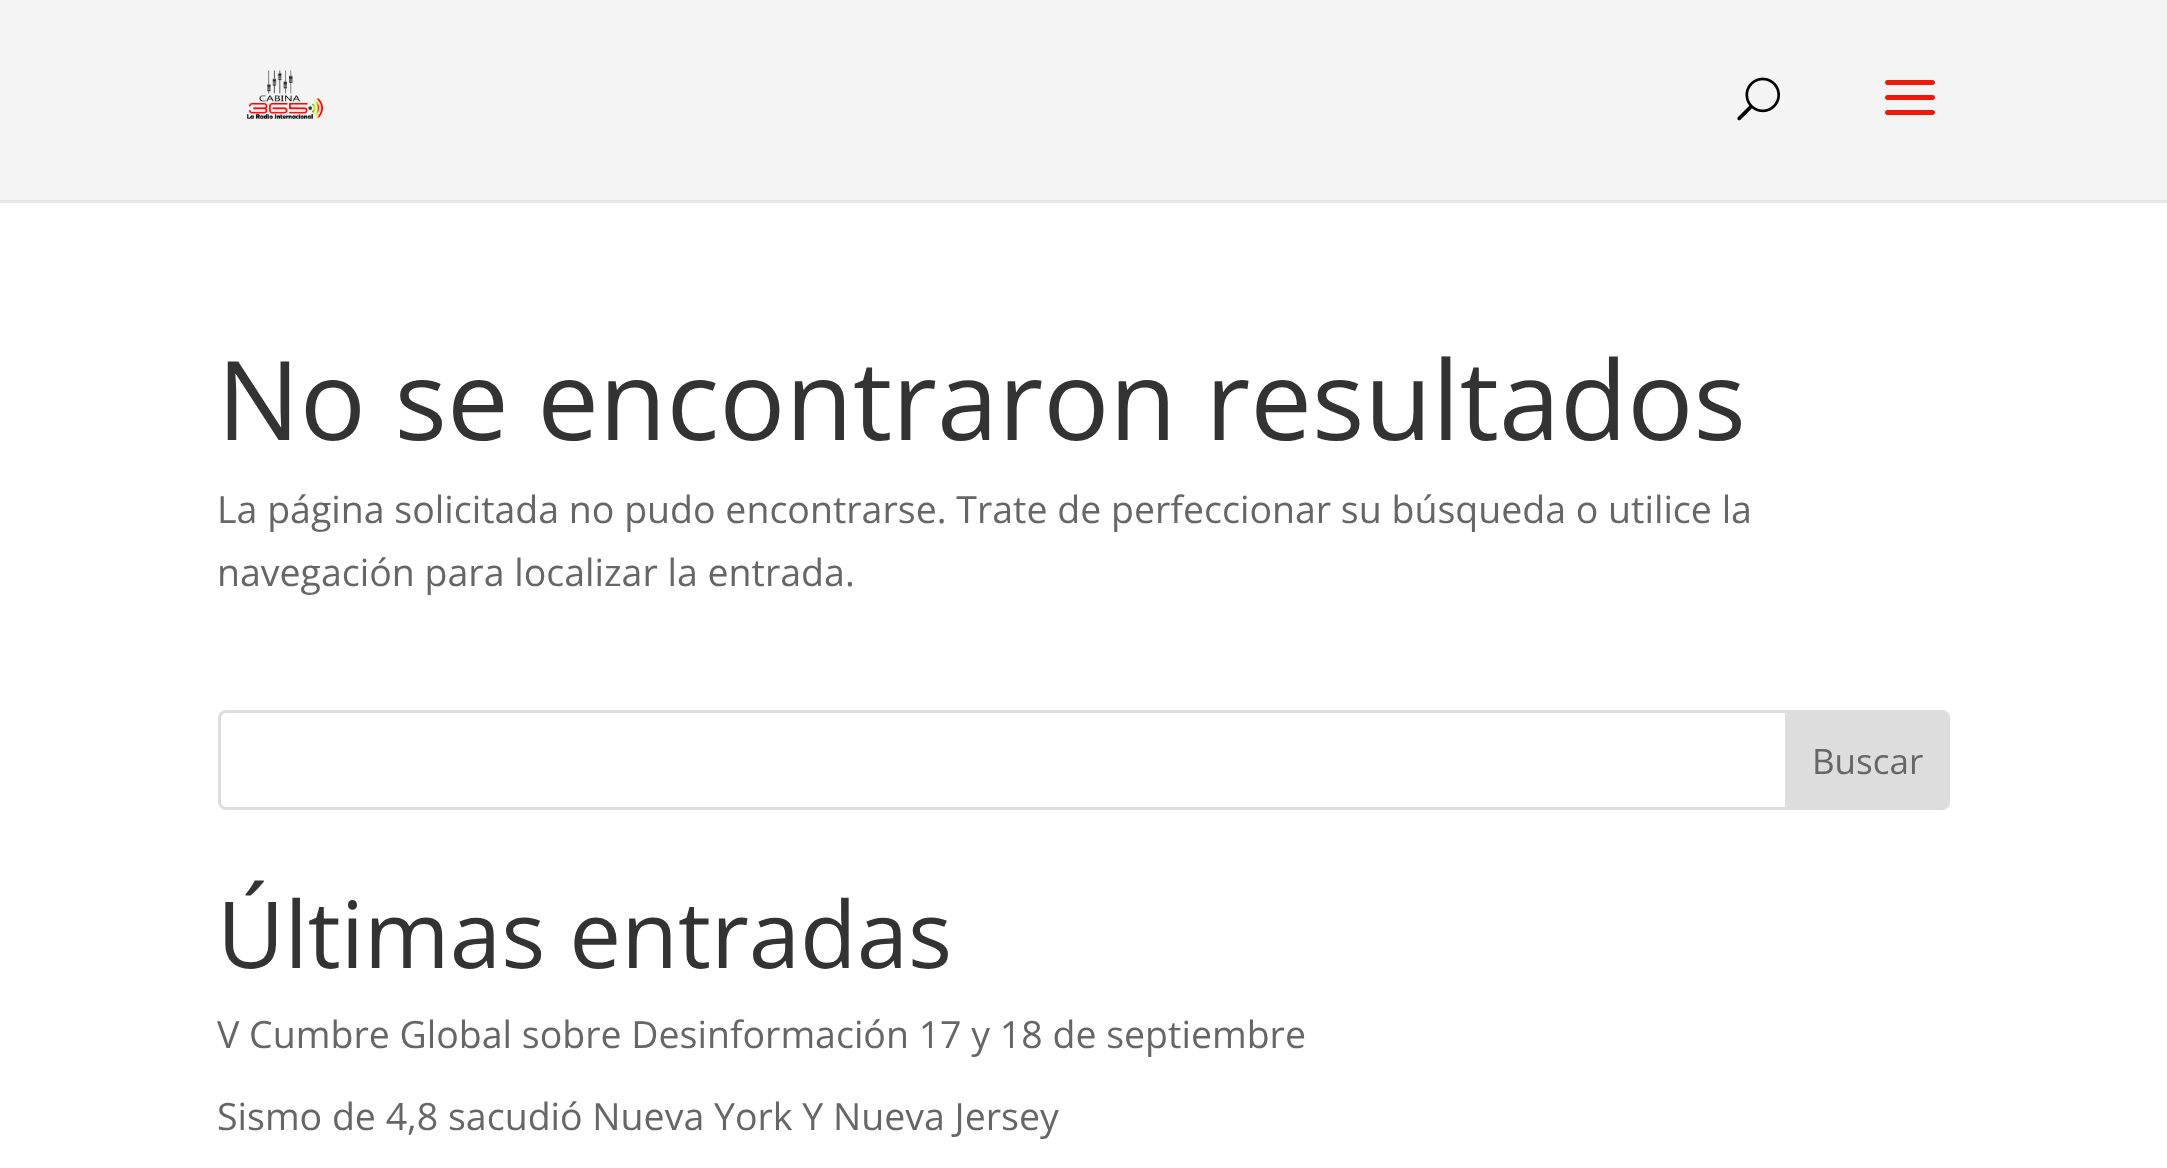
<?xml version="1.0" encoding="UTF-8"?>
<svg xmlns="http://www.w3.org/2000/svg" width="2167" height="1168">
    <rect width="100%" height="100%" fill="#FFFFFF"/>
    <path d="M 0 200 V 203 H 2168 V 3 V 200 Z" fill="#E6E6E6"/>
    <rect x="0" y="0" width="2167" height="200" fill="#F4F4F4"/>
    <image x="247" y="70" width="76" height="49" href="img_01.png"/>
    <image x="1737" y="77" width="43" height="44" href="img_02.png"/>
    <image x="1885" y="80" width="50" height="35" href="img_03.png"/>
    <text x="217" y="440" font-family="Open Sans" font-size="110" fill="#333333">No se encontraron resultados</text>
    <text font-family="Open Sans" font-size="37.5" fill="#666666">
        <tspan x="217" y="523">La página solicitada no pudo encontrarse. Trate de perfeccionar su búsqueda o utilice la</tspan>
        <tspan x="217" y="586">navegación para localizar la entrada.</tspan>
    </text>
    <rect x="219.5" y="711.5" width="1729" height="97" rx="6.5" fill="none" stroke="#DDDDDD" stroke-width="3"/>
    <path d="M 1786.5 711.5 H 1942 C 1945.5 711.5 1948.5 714.5 1948.5 718 V 802 C 1948.5 805.5 1945.5 808.5 1942 808.5 H 1786.5 Z" fill="#DDDDDD" stroke="#DDDDDD" stroke-width="3"/>
    <text x="1812" y="774" font-family="Open Sans" font-size="35" fill="#666666">Buscar</text>
    <text x="217" y="968" font-family="Open Sans" font-size="92.5" fill="#333333">Últimas entradas</text>
    <text x="217" y="1048" font-family="Open Sans" font-size="37.5" fill="#666666">V Cumbre Global sobre Desinformación 17 y 18 de septiembre</text>
    <text x="217" y="1130" font-family="Open Sans" font-size="37.5" fill="#666666">Sismo de 4,8 sacudió Nueva York Y Nueva Jersey</text>
</svg>
